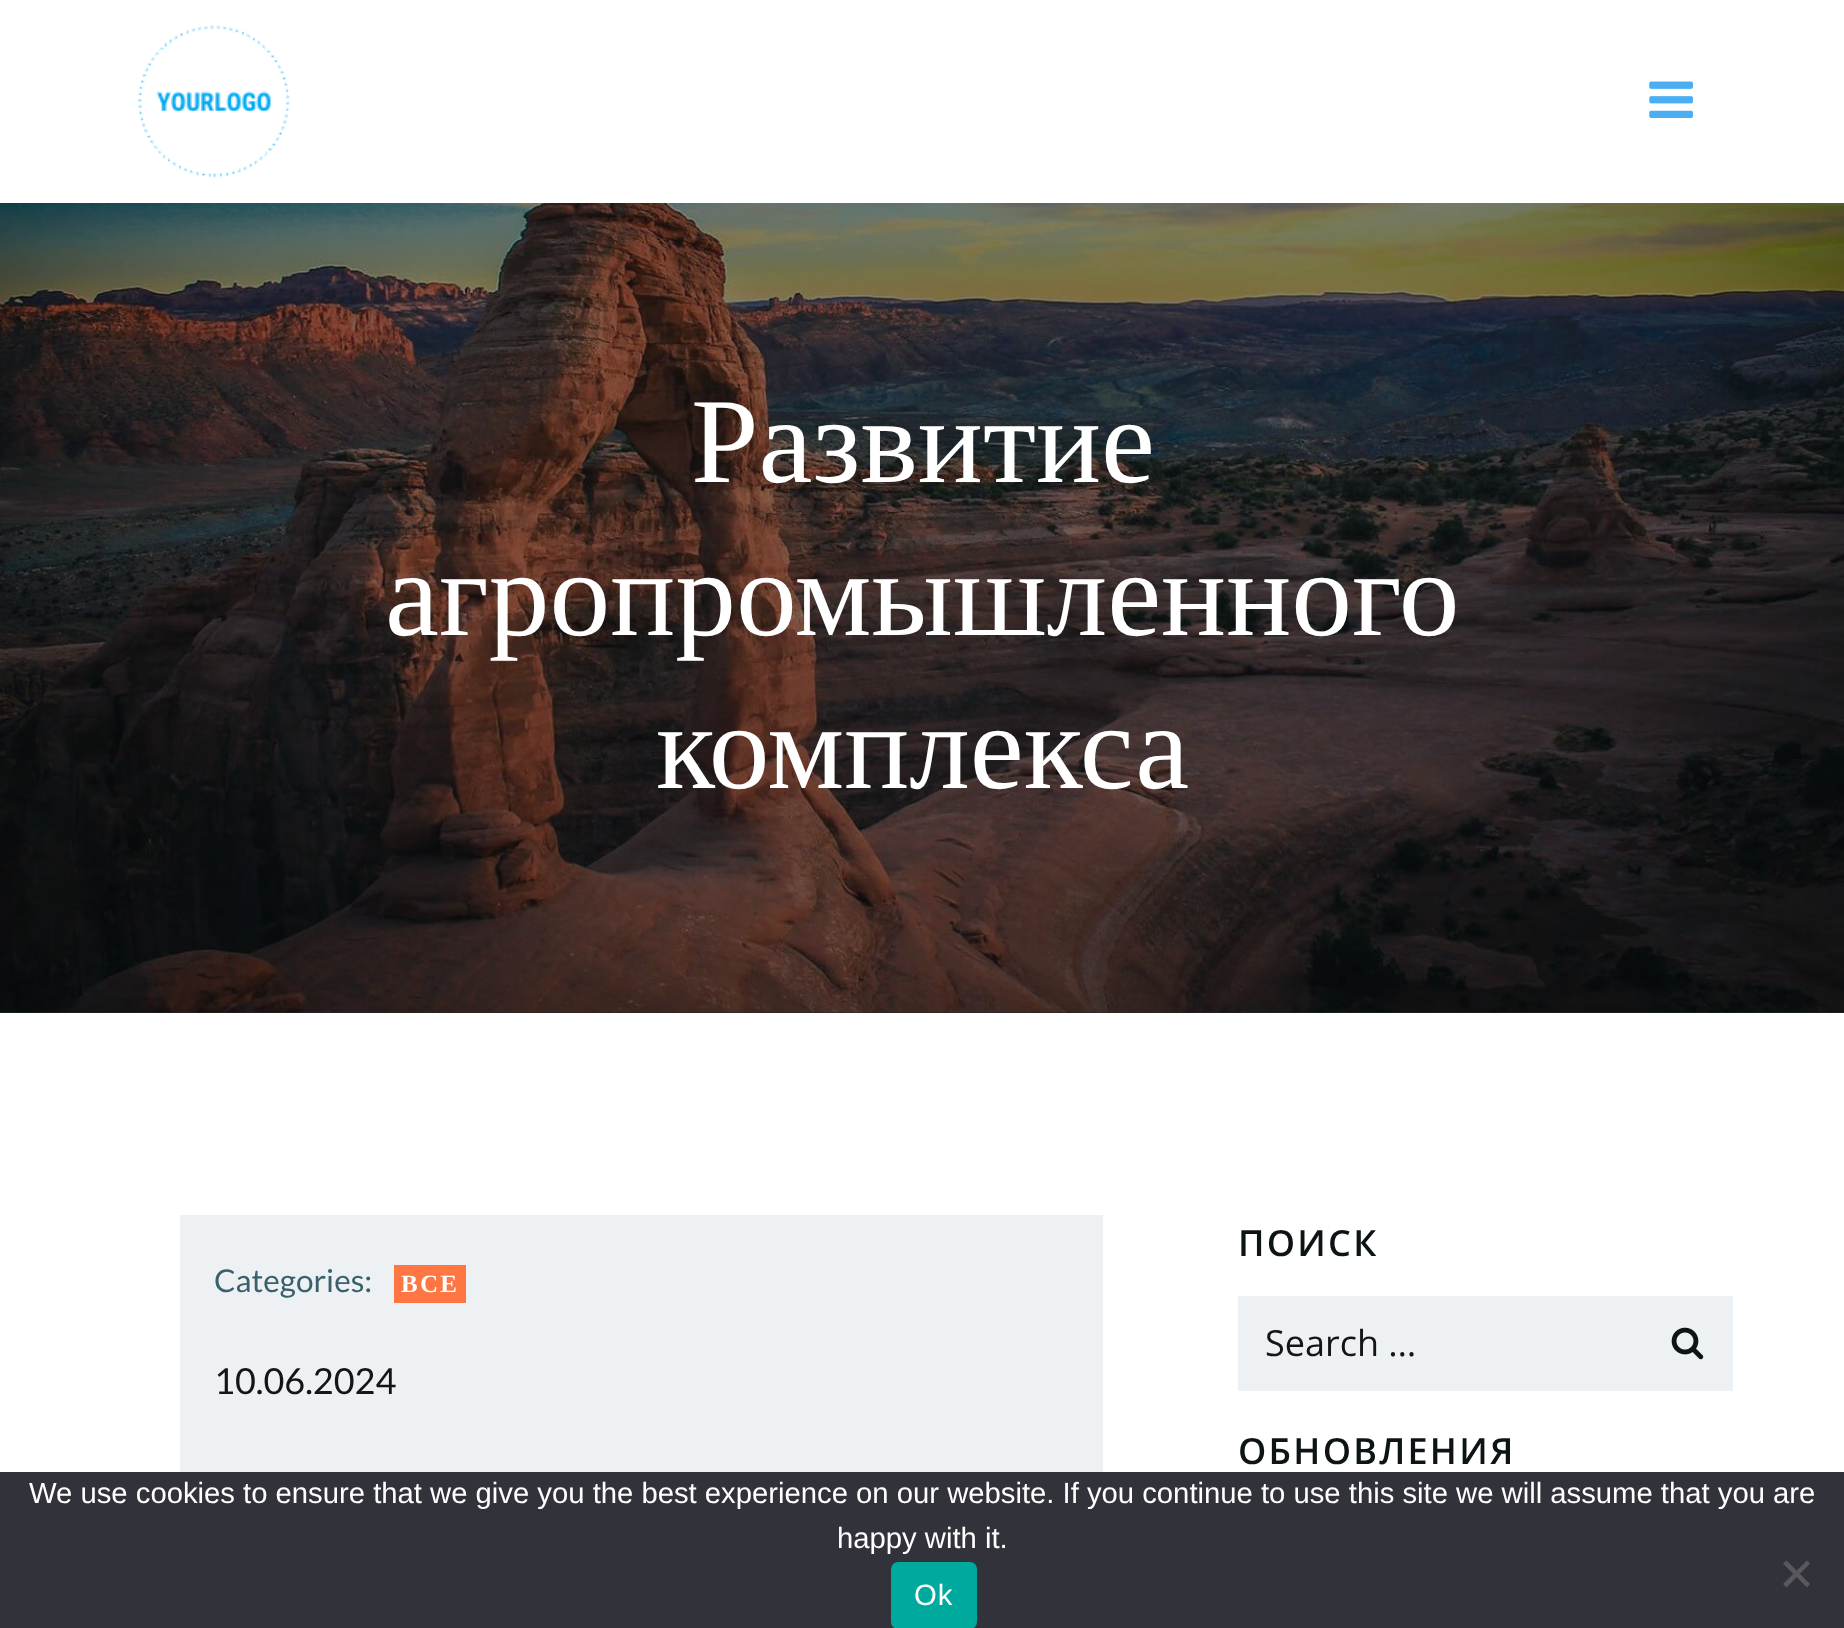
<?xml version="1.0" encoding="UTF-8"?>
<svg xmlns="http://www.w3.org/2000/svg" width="1844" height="1628">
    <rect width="100%" height="100%" fill="#FFFFFF"/>
    <image x="137" y="25" width="153" height="153" href="img_01.png"/>
    <image x="1649" y="81" width="44" height="37" href="img_02.png"/>
    <rect x="0" y="1012" width="1844" height="1" fill="#21282A"/>
    <image x="0" y="203" width="1844" height="810" href="img_03.png"/>
    <text x="691" y="482" font-family="Liberation Serif" font-size="121.5" fill="#FFFFFF">Развитие</text>
    <text x="385" y="635" font-family="Liberation Serif" font-size="121.5" fill="#FFFFFF">агропромышленного</text>
    <text x="656" y="788" font-family="Liberation Serif" font-size="121.5" fill="#FFFFFF">комплекса</text>
    <rect x="180" y="1215" width="923" height="257" fill="#EDF1F3"/>
    <text x="214" y="1292" font-family="Lato" font-size="31.5" fill="#3A616B">Categories:</text>
    <rect x="394" y="1265" width="72" height="38" fill="#FF7643"/>
    <text x="401" y="1292" font-family="Liberation Serif" font-size="25" font-weight="700" letter-spacing="2.25" fill="#FFFFFF">ВСЕ</text>
    <text x="214" y="1394" font-family="Lato" font-size="36" fill="#131516">10.06.2024</text>
    <text x="1238" y="1256" font-family="Open Sans" font-size="36" font-weight="600" letter-spacing="2.25" fill="#0C1416">ПОИСК</text>
    <rect x="1238" y="1296" width="495" height="95" fill="#EDF1F3"/>
    <text x="1265" y="1356" font-family="Open Sans" font-size="36" fill="#131516">Search …</text>
    <image x="1671" y="1327" width="33" height="33" href="img_04.png"/>
    <text x="1238" y="1464" font-family="Open Sans" font-size="36" font-weight="600" letter-spacing="2.25" fill="#0C1416">ОБНОВЛЕНИЯ</text>
    <rect x="0" y="1472" width="1844" height="156" fill="#32323A"/>
    <text x="29" y="1503" font-family="Liberation Sans" font-size="29.25" fill="#FFFFFF">We use cookies to ensure that we give you the best experience on our website. If you continue to use this site we will assume that you are</text>
    <text x="837" y="1548" font-family="Liberation Sans" font-size="29.25" fill="#FFFFFF">happy with it.</text>
    <path d="M 1807 1560.5 L 1810 1563.5 L 1786.5 1587.5 L 1783 1584 Z" fill="#59595D"/>
    <path d="M 1783 1563.5 L 1786.5 1560.5 L 1810 1584 L 1807 1587.5 Z" fill="#59595D"/>
    <rect x="891" y="1562" width="86" height="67" rx="7" fill="#00A99D"/>
    <text x="914" y="1605" font-family="Liberation Sans" font-size="29.25" letter-spacing="1" fill="#FFFFFF">Ok</text>
</svg>
